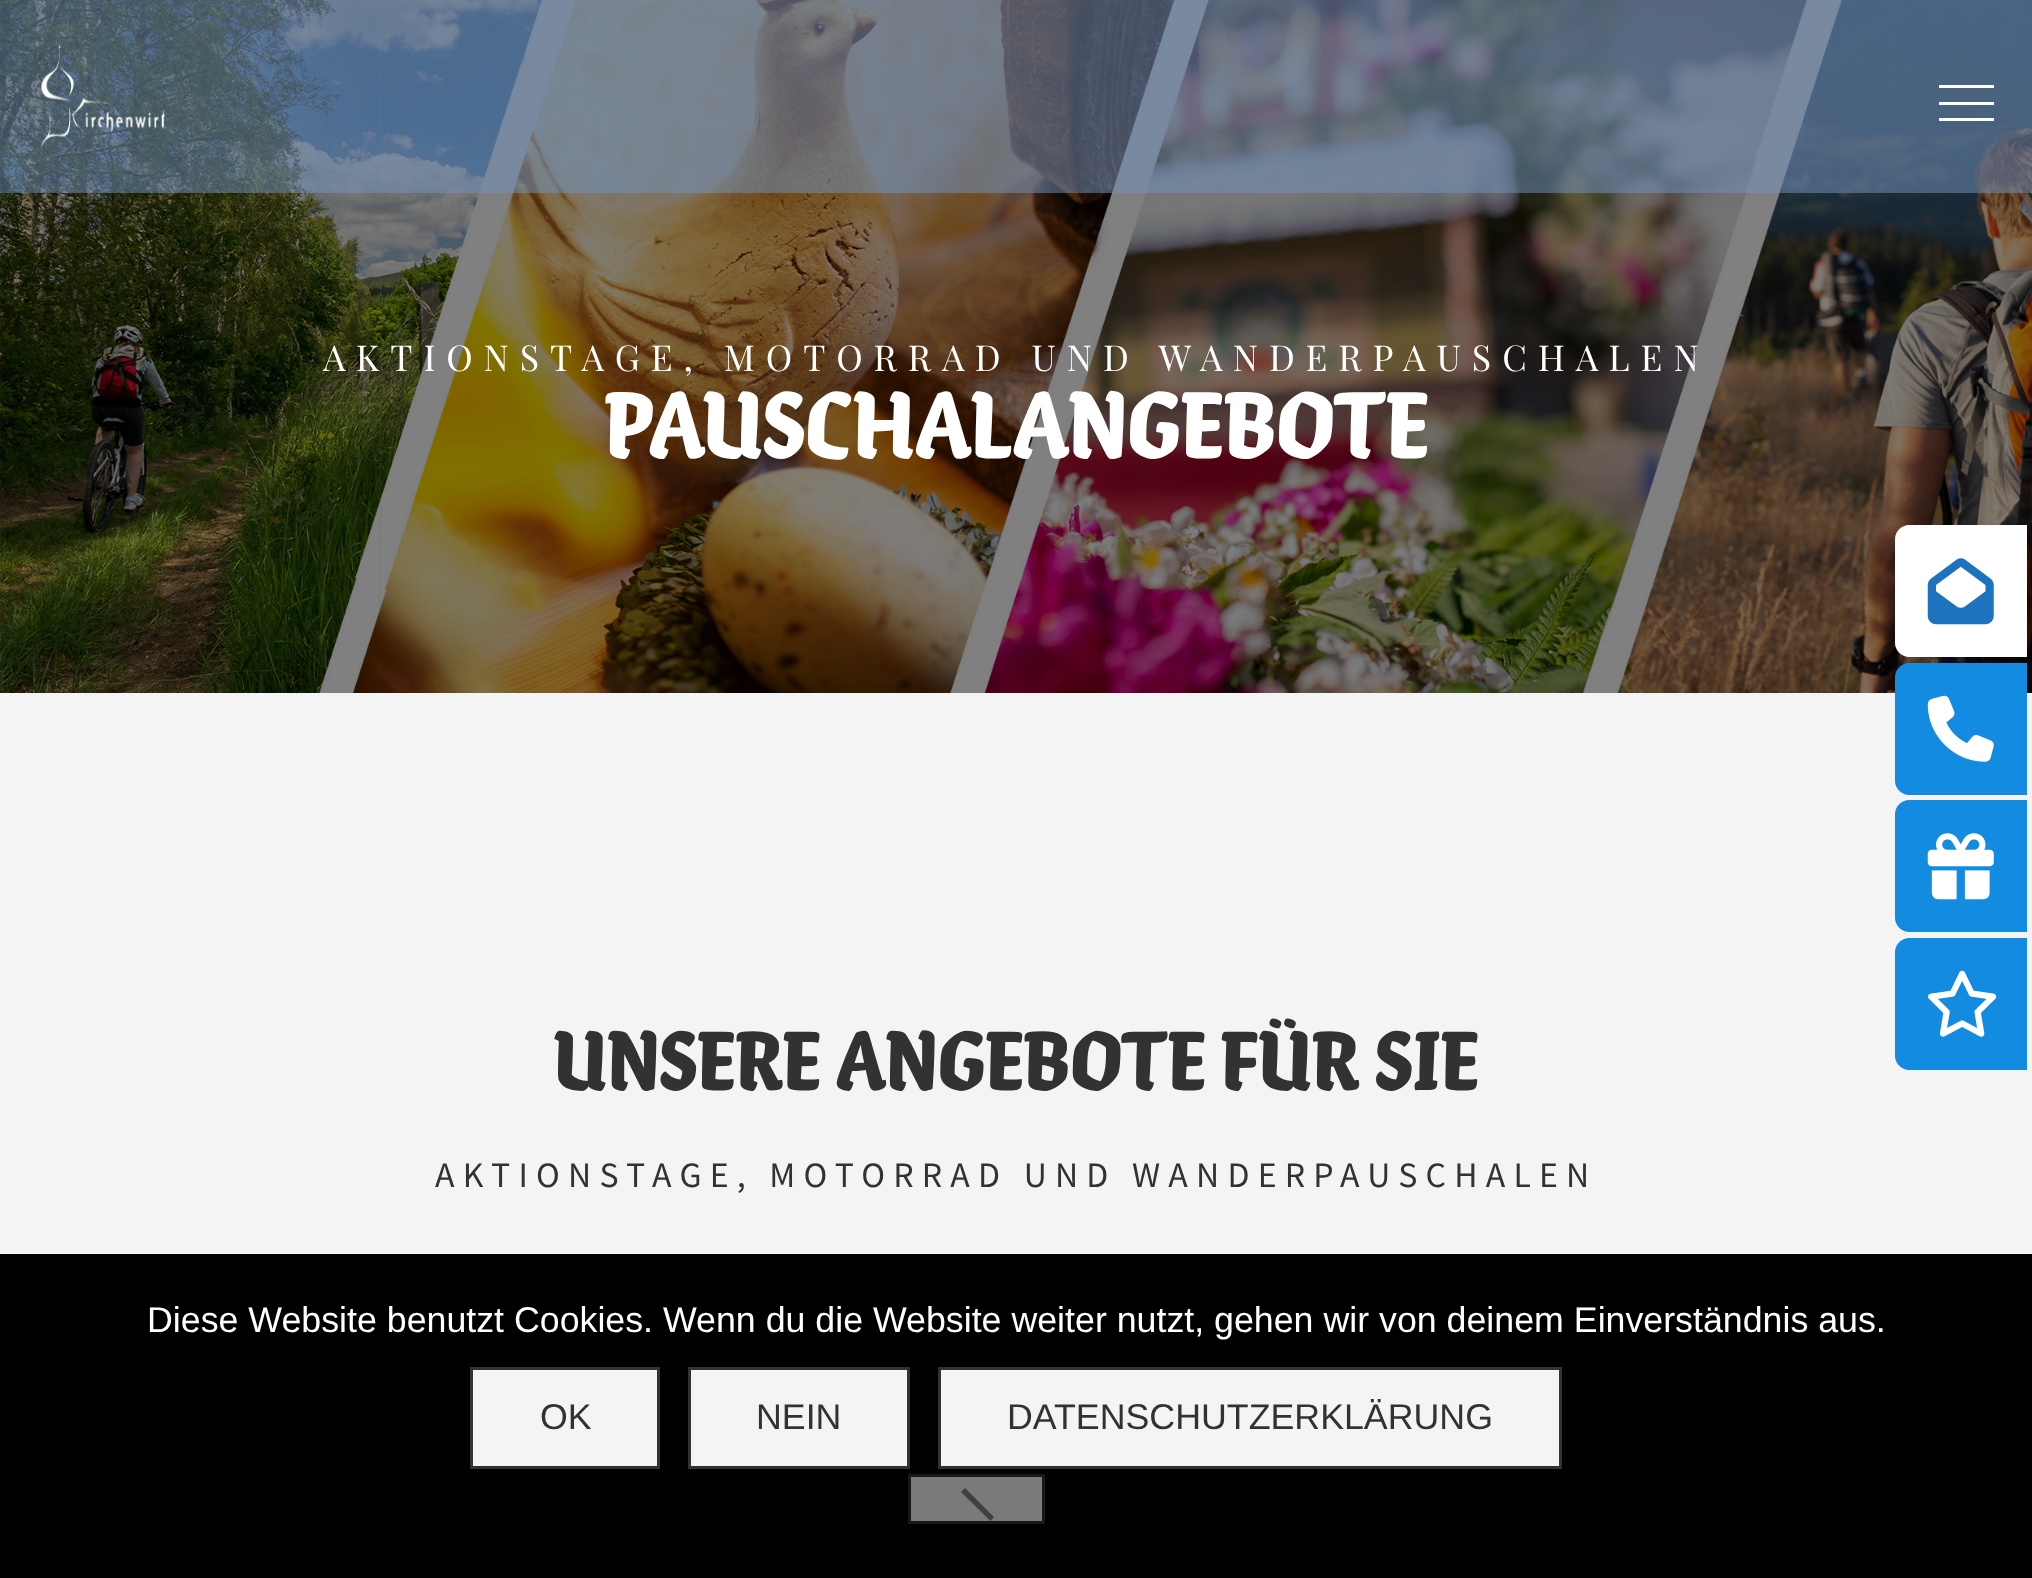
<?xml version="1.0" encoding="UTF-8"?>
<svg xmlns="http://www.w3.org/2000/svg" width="2032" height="1578">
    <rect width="100%" height="100%" fill="#F4F4F4"/>
    <image x="0" y="0" width="2032" height="693" href="img_02.png"/>
    <rect x="0" y="0" width="2032" height="193" fill="#7293BF" fill-opacity="0.5"/>
    <image x="41" y="44" width="124" height="104" href="img_01.png"/>
    <rect x="1939" y="85" width="55" height="3" fill="#FFFFFF"/>
    <rect x="1939" y="102" width="55" height="3" fill="#FFFFFF"/>
    <rect x="1939" y="118" width="55" height="3" fill="#FFFFFF"/>
    <text x="323" y="371" font-family="Playfair Display" font-size="35.75" letter-spacing="11" fill="#FFFFFF">AKTIONSTAGE, MOTORRAD UND WANDERPAUSCHALEN</text>
    <text x="604" y="458" font-family="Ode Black" font-size="99" font-weight="900" fill="#FFFFFF">PAUSCHALANGEBOTE</text>
    <text x="553" y="1090" font-family="Ode Black" font-size="88" font-weight="900" fill="#323232">UNSERE ANGEBOTE FÜR SIE</text>
    <text x="435" y="1187" font-family="Source Sans Pro" font-size="35.75" letter-spacing="8.25" fill="#323232">AKTIONSTAGE, MOTORRAD UND WANDERPAUSCHALEN</text>
    <path d="M 1909 525 H 2027 V 657 H 1909 C 1901.5 657 1895 650.5 1895 643 V 539 C 1895 531.5 1901.5 525 1909 525 Z" fill="#FFFFFF"/>
    <image x="1927" y="558" width="67" height="67" href="img_03.png"/>
    <path d="M 1909 663 H 2027 V 795 H 1909 C 1901.5 795 1895 788.5 1895 781 V 677 C 1895 669.5 1901.5 663 1909 663 Z" fill="#128BE0"/>
    <image x="1927" y="695" width="67" height="67" href="img_04.png"/>
    <path d="M 1909 800 H 2027 V 932 H 1909 C 1901.5 932 1895 925.5 1895 918 V 814 C 1895 806.5 1901.5 800 1909 800 Z" fill="#128BE0"/>
    <image x="1927" y="833" width="67" height="67" href="img_05.png"/>
    <path d="M 1909 938 H 2027 V 1070 H 1909 C 1901.5 1070 1895 1063.5 1895 1056 V 952 C 1895 944.5 1901.5 938 1909 938 Z" fill="#128BE0"/>
    <image x="1928" y="970" width="69" height="67" href="img_06.png"/>
    <rect x="0" y="1254" width="2032" height="324" fill="#000000"/>
    <text x="147" y="1332" font-family="Liberation Sans" font-size="35.75" fill="#FFFFFF">Diese Website benutzt Cookies. Wenn du die Website weiter nutzt, gehen wir von deinem Einverständnis aus.</text>
    <rect x="471.5" y="1368.5" width="187" height="99" fill="#F4F4F4" stroke="#323232" stroke-width="3"/>
    <text x="540" y="1429" font-family="Liberation Sans" font-size="35.75" fill="#323232">OK</text>
    <rect x="689.5" y="1368.5" width="219" height="99" fill="#F4F4F4" stroke="#323232" stroke-width="3"/>
    <text x="756" y="1429" font-family="Liberation Sans" font-size="35.75" fill="#323232">NEIN</text>
    <rect x="939.5" y="1368.5" width="621" height="99" fill="#F4F4F4" stroke="#323232" stroke-width="3"/>
    <text x="1007" y="1429" font-family="Liberation Sans" font-size="35.75" fill="#323232">DATENSCHUTZERKLÄRUNG</text>
    <rect x="909.5" y="1475.5" width="134" height="47" fill="#7A7A7A" stroke="#191919" stroke-width="3"/>
    <path d="M 961 1492 L 965 1488 L 994 1517 L 990.5 1521 Z" fill="#404040"/>
</svg>
